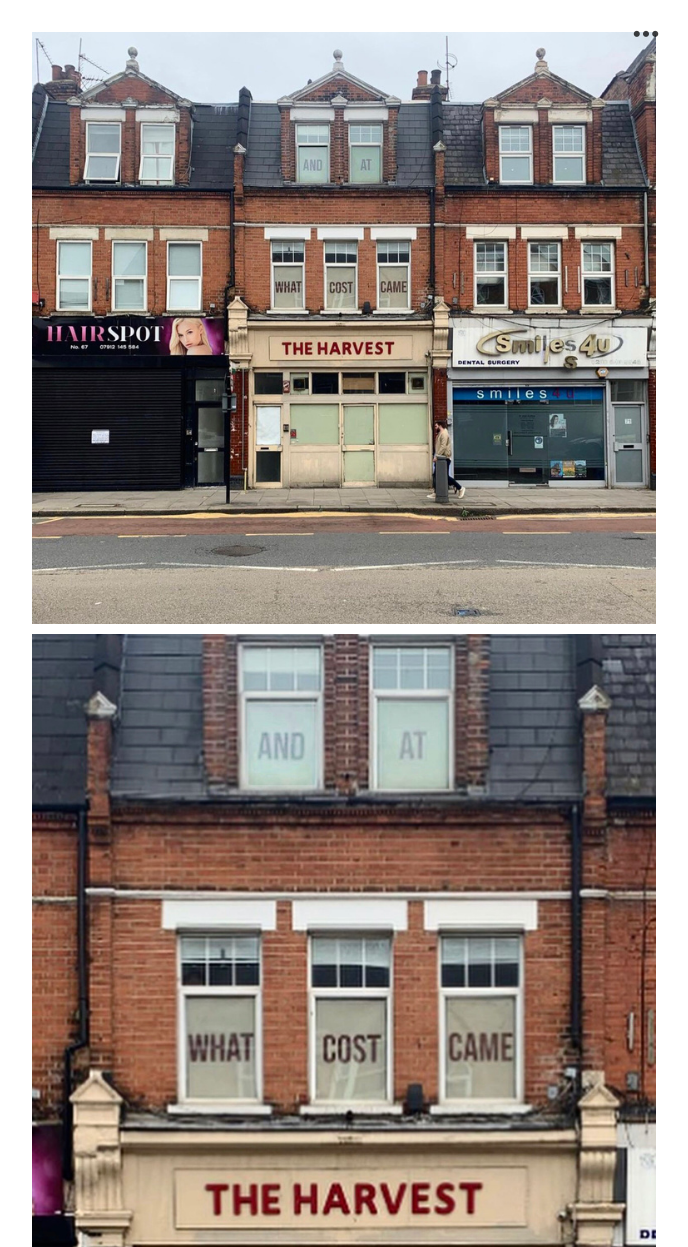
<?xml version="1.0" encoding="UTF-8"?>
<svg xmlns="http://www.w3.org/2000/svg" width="688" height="1247">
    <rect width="100%" height="100%" fill="#FFFFFF"/>
    <image x="32" y="32" width="624" height="592" href="img_02.png"/>
    <image x="633" y="30" width="26" height="7" href="img_01.png"/>
    <image x="32" y="634" width="624" height="613" href="img_03.png"/>
</svg>
